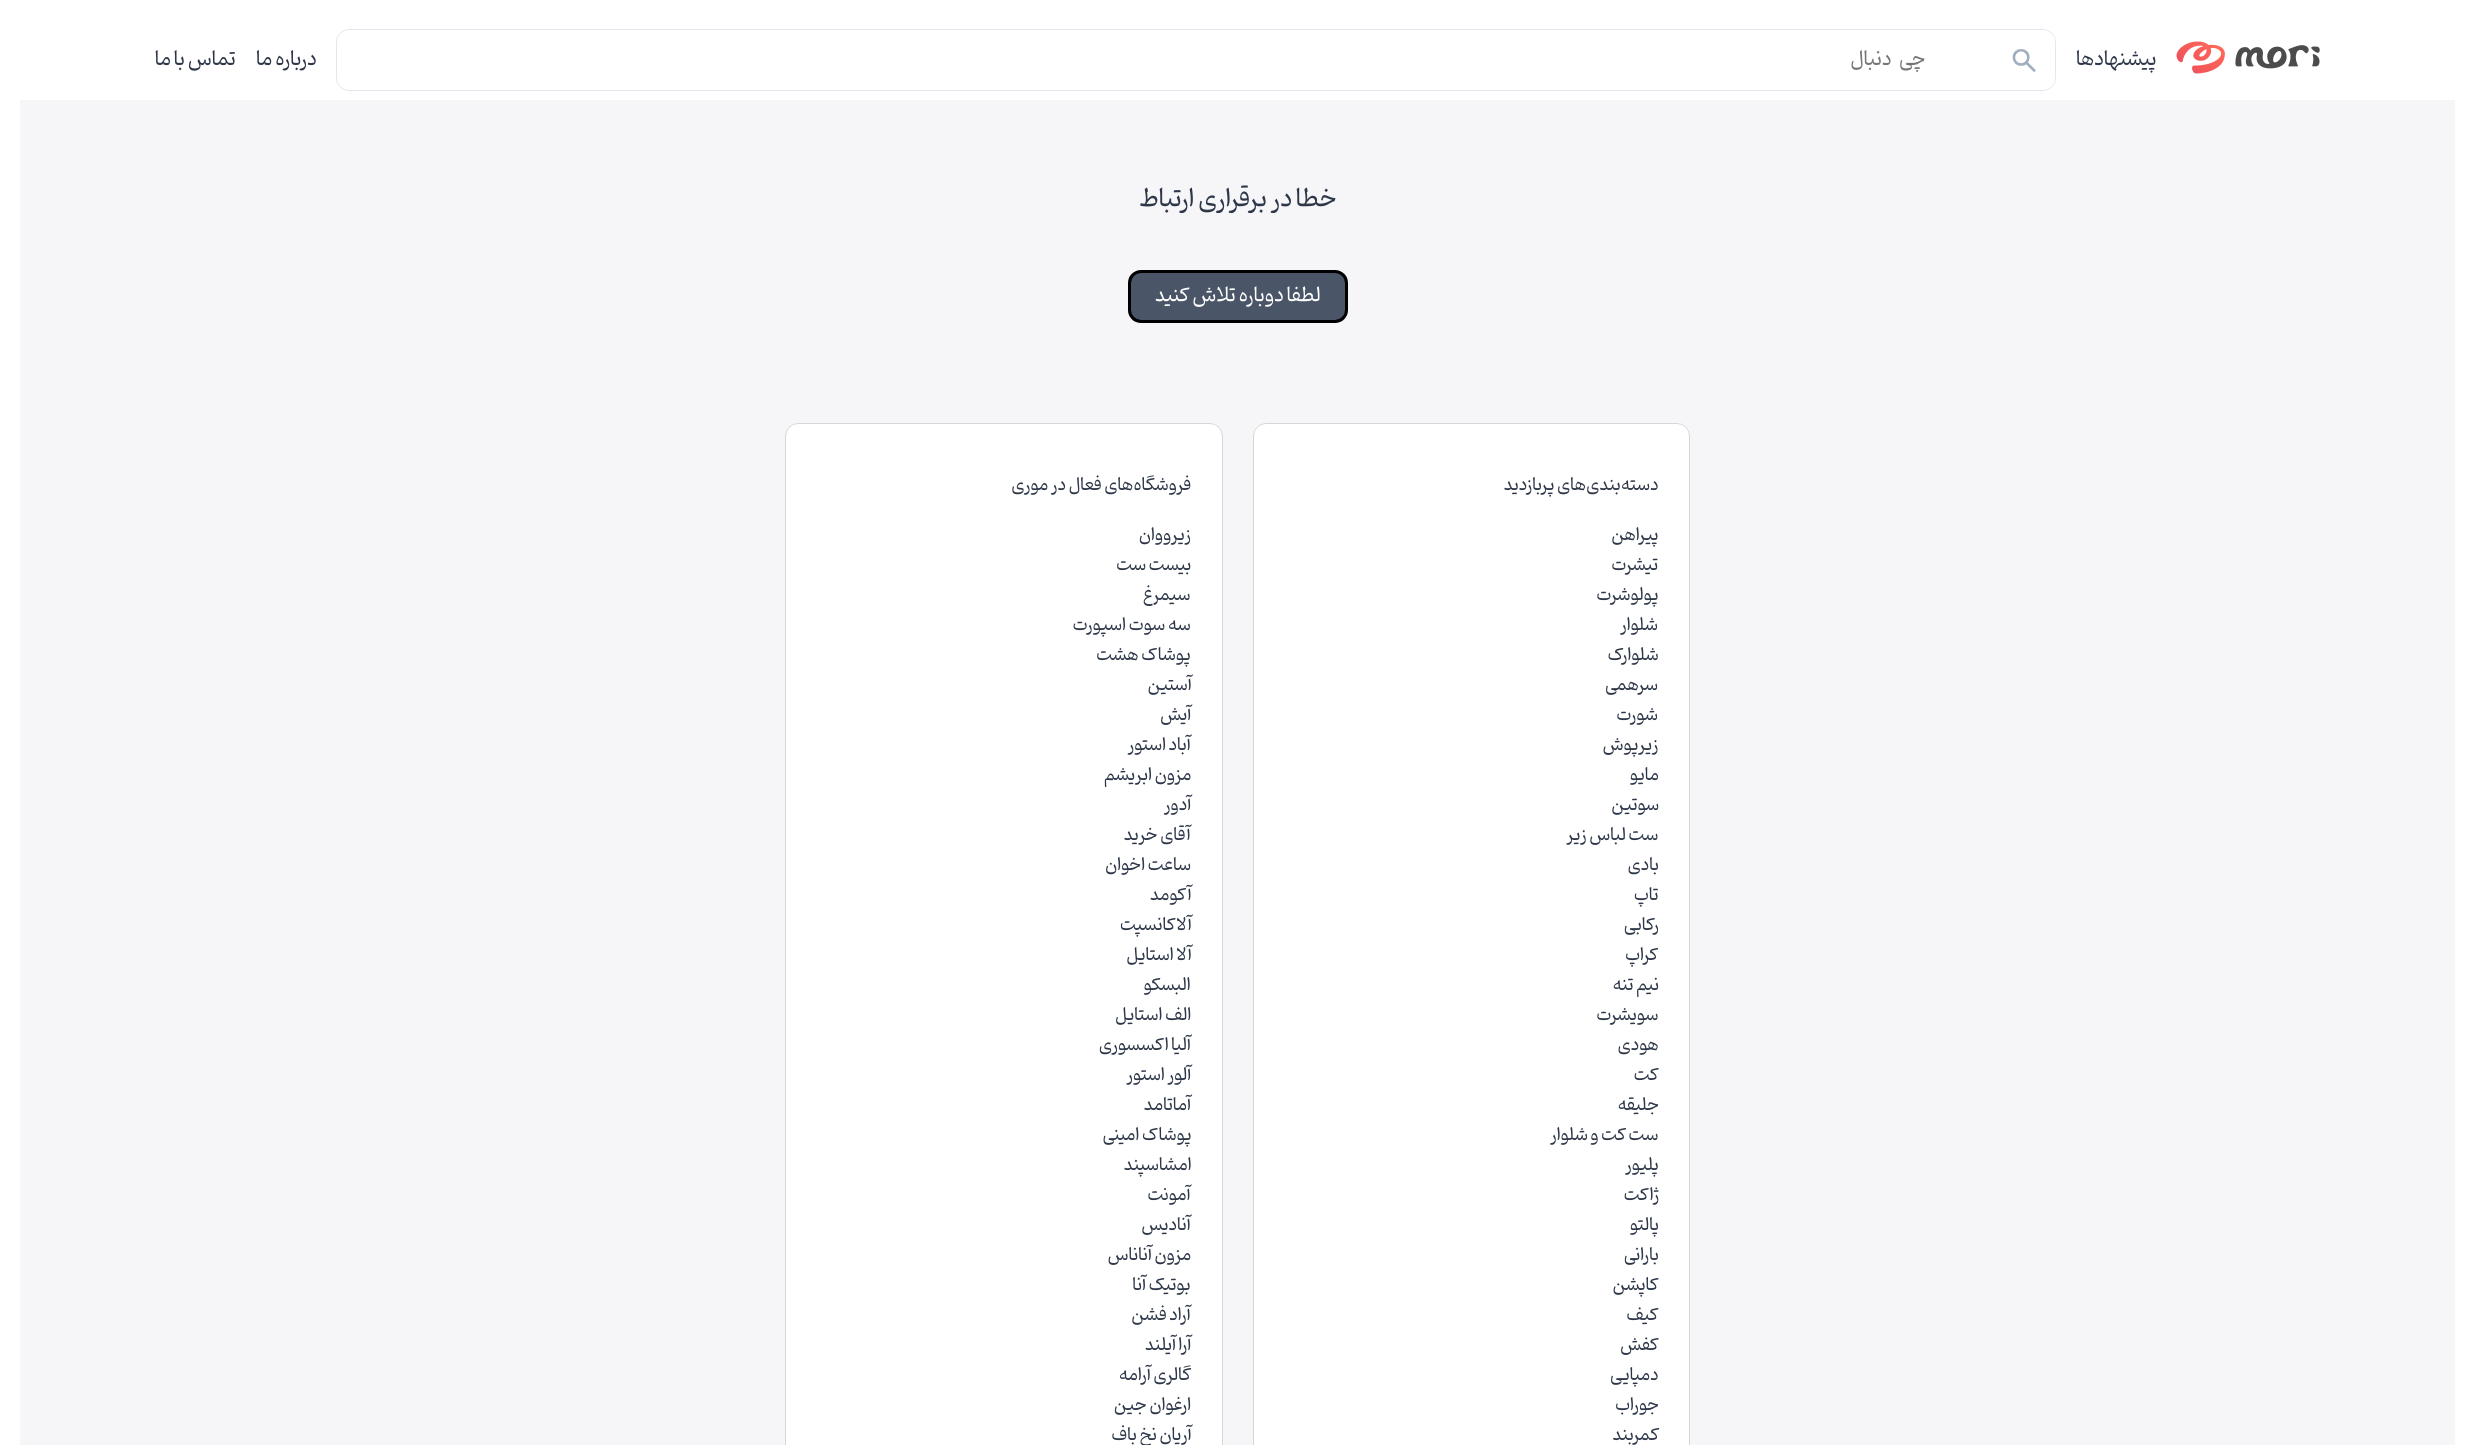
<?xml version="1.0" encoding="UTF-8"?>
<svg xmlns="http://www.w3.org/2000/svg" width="2475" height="1445">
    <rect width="100%" height="100%" fill="#FFFFFF"/>
    <image x="155" y="50" width="80" height="21" href="img_01.png"/>
    <image x="256" y="50" width="60" height="21" href="img_02.png"/>
    <rect x="336.5" y="29.5" width="1719" height="61" rx="12.5" fill="none" stroke="#E2E8F0"/>
    <rect x="338" y="30" width="1717" height="60" rx="13" fill="#FFFFFF"/>
    <image x="1851" y="50" width="40" height="21" href="img_03.png"/>
    <image x="1900" y="56" width="25" height="17" href="img_04.png"/>
    <image x="2012" y="49" width="24" height="23" href="img_05.png"/>
    <image x="2076" y="50" width="80" height="23" href="img_06.png"/>
    <image x="2176" y="41" width="144" height="33" href="img_07.png"/>
    <rect x="20" y="100" width="2435" height="1345" fill="#F6F6F9"/>
    <image x="1140" y="185" width="196" height="29" href="img_08.png"/>
    <rect x="1129.5" y="271.5" width="217" height="50" rx="11.5" fill="#4A5568" stroke="#000000" stroke-width="3"/>
    <image x="1155" y="286" width="165" height="21" href="img_09.png"/>
    <rect x="785" y="423" width="438" height="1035" rx="13" fill="#FFFFFF"/>
    <rect x="785.5" y="423.5" width="437" height="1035" rx="12.5" fill="none" stroke="#000000" stroke-opacity="0.16"/>
    <image x="1012" y="475" width="179" height="20" href="img_10.png"/>
    <image x="1139" y="526" width="52" height="19" href="img_11.png"/>
    <image x="1117" y="561" width="74" height="14" href="img_12.png"/>
    <image x="1143" y="585" width="47" height="21" href="img_13.png"/>
    <image x="1073" y="616" width="117" height="21" href="img_14.png"/>
    <image x="1097" y="646" width="93" height="21" href="img_15.png"/>
    <image x="1148" y="674" width="45" height="21" href="img_16.png"/>
    <image x="1161" y="704" width="32" height="21" href="img_17.png"/>
    <image x="1127" y="734" width="65" height="21" href="img_18.png"/>
    <image x="1104" y="766" width="87" height="22" href="img_19.png"/>
    <image x="1163" y="794" width="30" height="21" href="img_20.png"/>
    <image x="1124" y="824" width="68" height="21" href="img_21.png"/>
    <image x="1106" y="856" width="85" height="19" href="img_22.png"/>
    <image x="1150" y="884" width="43" height="21" href="img_23.png"/>
    <image x="1120" y="914" width="73" height="23" href="img_24.png"/>
    <image x="1127" y="944" width="66" height="21" href="img_25.png"/>
    <image x="1143" y="976" width="47" height="19" href="img_26.png"/>
    <image x="1116" y="1006" width="75" height="19" href="img_27.png"/>
    <image x="1099" y="1034" width="94" height="21" href="img_28.png"/>
    <image x="1126" y="1064" width="67" height="21" href="img_29.png"/>
    <image x="1144" y="1094" width="49" height="17" href="img_30.png"/>
    <image x="1103" y="1126" width="88" height="21" href="img_31.png"/>
    <image x="1124" y="1156" width="67" height="21" href="img_32.png"/>
    <image x="1148" y="1184" width="44" height="21" href="img_33.png"/>
    <image x="1142" y="1214" width="50" height="21" href="img_34.png"/>
    <image x="1108" y="1244" width="83" height="21" href="img_35.png"/>
    <image x="1133" y="1274" width="57" height="21" href="img_36.png"/>
    <image x="1132" y="1304" width="60" height="21" href="img_37.png"/>
    <image x="1145" y="1334" width="48" height="21" href="img_38.png"/>
    <image x="1120" y="1364" width="72" height="21" href="img_39.png"/>
    <image x="1114" y="1396" width="77" height="19" href="img_40.png"/>
    <image x="1112" y="1424" width="81" height="21" href="img_41.png"/>
    <rect x="1253" y="423" width="437" height="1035" rx="13" fill="#FFFFFF"/>
    <rect x="1253.5" y="423.5" width="436" height="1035" rx="12.5" fill="none" stroke="#000000" stroke-opacity="0.16"/>
    <image x="1504" y="476" width="154" height="21" href="img_42.png"/>
    <image x="1612" y="526" width="46" height="21" href="img_43.png"/>
    <image x="1612" y="558" width="46" height="17" href="img_44.png"/>
    <image x="1597" y="586" width="61" height="21" href="img_45.png"/>
    <image x="1620" y="616" width="38" height="19" href="img_46.png"/>
    <image x="1608" y="646" width="50" height="19" href="img_47.png"/>
    <image x="1606" y="681" width="52" height="14" href="img_48.png"/>
    <image x="1617" y="708" width="41" height="17" href="img_49.png"/>
    <image x="1603" y="738" width="55" height="19" href="img_50.png"/>
    <image x="1630" y="766" width="28" height="19" href="img_51.png"/>
    <image x="1612" y="798" width="47" height="17" href="img_52.png"/>
    <image x="1566" y="826" width="92" height="19" href="img_53.png"/>
    <image x="1628" y="856" width="30" height="19" href="img_54.png"/>
    <image x="1634" y="886" width="24" height="21" href="img_55.png"/>
    <image x="1624" y="916" width="35" height="19" href="img_56.png"/>
    <image x="1626" y="946" width="33" height="21" href="img_57.png"/>
    <image x="1613" y="977" width="46" height="21" href="img_58.png"/>
    <image x="1597" y="1008" width="61" height="17" href="img_59.png"/>
    <image x="1618" y="1041" width="40" height="14" href="img_60.png"/>
    <image x="1634" y="1068" width="25" height="13" href="img_61.png"/>
    <image x="1618" y="1096" width="41" height="19" href="img_62.png"/>
    <image x="1550" y="1126" width="108" height="19" href="img_63.png"/>
    <image x="1625" y="1156" width="33" height="21" href="img_64.png"/>
    <image x="1624" y="1186" width="35" height="19" href="img_65.png"/>
    <image x="1630" y="1216" width="28" height="21" href="img_66.png"/>
    <image x="1624" y="1246" width="34" height="19" href="img_67.png"/>
    <image x="1613" y="1276" width="46" height="21" href="img_68.png"/>
    <image x="1627" y="1307" width="32" height="18" href="img_69.png"/>
    <image x="1621" y="1337" width="38" height="18" href="img_70.png"/>
    <image x="1611" y="1367" width="47" height="20" href="img_71.png"/>
    <image x="1616" y="1396" width="43" height="19" href="img_72.png"/>
    <image x="1613" y="1428" width="47" height="17" href="img_73.png"/>
</svg>
